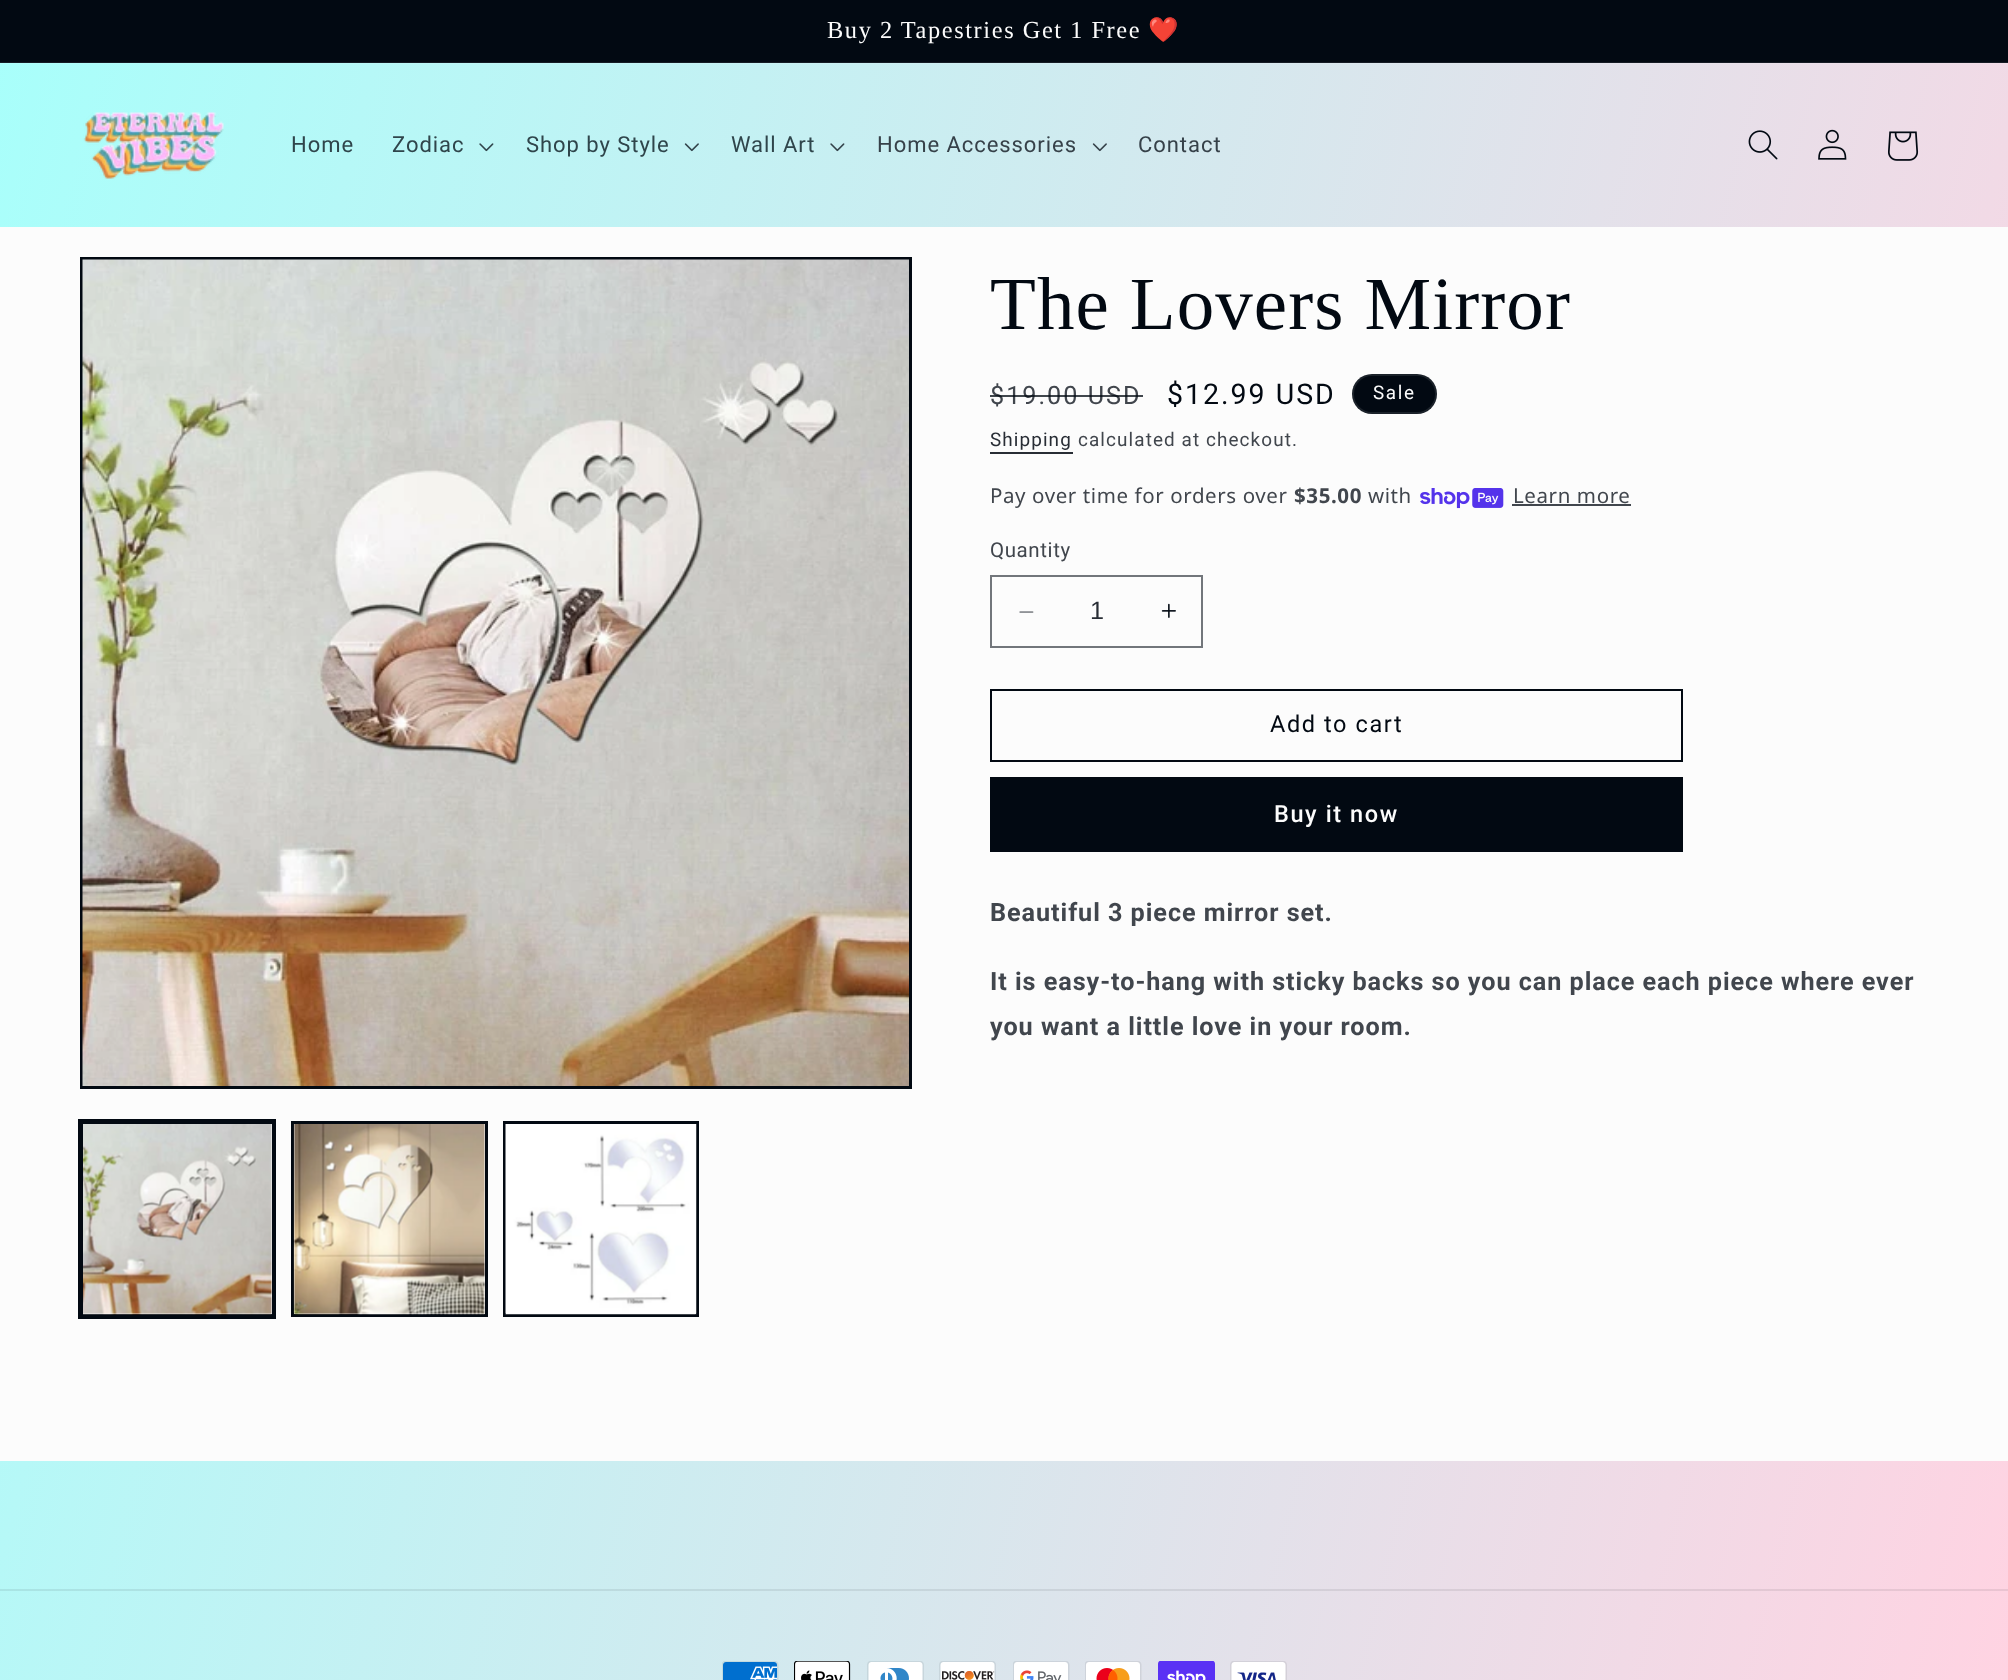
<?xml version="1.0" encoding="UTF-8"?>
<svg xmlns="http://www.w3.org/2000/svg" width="2008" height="1680">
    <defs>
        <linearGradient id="g1" gradientUnits="userSpaceOnUse" x1="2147" y1="1125" x2="-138" y2="555"><stop offset="0" stop-color="#FFD3E2"/><stop offset="1" stop-color="#A8FFFB"/></linearGradient>
        <linearGradient id="g2" gradientUnits="userSpaceOnUse" x1="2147" y1="1125" x2="-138" y2="555"><stop offset="0" stop-color="#FFD6E4"/><stop offset="1" stop-color="#AFFFFB"/></linearGradient>
        <linearGradient id="g3" gradientUnits="userSpaceOnUse" x1="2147" y1="1125" x2="-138" y2="555"><stop offset="0" stop-color="#EBC3D1"/><stop offset="1" stop-color="#9BEBE8"/></linearGradient>
    </defs>
    <rect width="100%" height="100%" fill="#FCFCFC"/>
    <rect x="0" y="0" width="2008" height="62" fill="#020912"/>
    <rect x="0" y="62" width="2008" height="1" fill="#161C25"/>
    <text x="827" y="38" word-spacing="-0.25" font-family="Liberation Serif" font-size="24.4" letter-spacing="1.6" fill="#FCFCFC">Buy 2 Tapestries Get 1 Free</text>
    <text x="1148" y="38" font-family="Noto Color Emoji" font-size="24.4" letter-spacing="1.6" fill="#FCFCFC">❤️</text>
    <rect x="0" y="64" width="2008" height="163" fill="url(#g1)"/>
    <rect x="0" y="63" width="2008" height="1" fill="url(#g2)"/>
    <image x="83" y="112" width="141" height="67" href="img_01.png"/>
    <text x="291" y="152" font-family="Roboto" font-size="22" letter-spacing="0.95" fill="#2F454B">Home</text>
    <text x="392" y="152" font-family="Roboto" font-size="22" letter-spacing="0.95" fill="#2F454B">Zodiac</text>
    <image x="479" y="143" width="15" height="9" href="img_02.png"/>
    <text x="526" y="152" font-family="Roboto" font-size="22" letter-spacing="0.95" fill="#2F454B">Shop by Style</text>
    <image x="684" y="143" width="15" height="9" href="img_03.png"/>
    <text x="731" y="152" font-family="Roboto" font-size="22" letter-spacing="0.95" fill="#2F454B">Wall Art</text>
    <image x="830" y="143" width="15" height="9" href="img_04.png"/>
    <text x="877" y="152" font-family="Roboto" font-size="22" letter-spacing="0.95" fill="#364149">Home Accessories</text>
    <image x="1092" y="143" width="15" height="9" href="img_05.png"/>
    <text x="1138" y="152" font-family="Roboto" font-size="22" letter-spacing="0.95" fill="#364149">Contact</text>
    <image x="1748" y="130" width="30" height="30" href="img_06.png"/>
    <image x="1818" y="129" width="29" height="31" href="img_07.png"/>
    <image x="1888" y="131" width="31" height="30" href="img_08.png"/>
    <rect x="81.5" y="258.5" width="829" height="829" fill="none" stroke="#020912" stroke-width="3"/>
    <image x="82" y="259" width="827" height="827" href="img_09.png"/>
    <rect x="79" y="1120" width="196" height="198" fill="none" stroke="#020912" stroke-width="2"/>
    <rect x="81.5" y="1122.5" width="192" height="193" fill="none" stroke="#020912" stroke-width="3"/>
    <image x="83" y="1124" width="189" height="191" href="img_10.png"/>
    <rect x="292.5" y="1122.5" width="194" height="193" fill="none" stroke="#020912" stroke-width="3"/>
    <image x="293" y="1124" width="192" height="191" href="img_11.png"/>
    <rect x="504.5" y="1122.5" width="193" height="193" fill="none" stroke="#020912" stroke-width="3"/>
    <image x="505" y="1124" width="192" height="191" href="img_12.png"/>
    <text x="990" y="329" font-family="Liberation Serif" font-size="75" letter-spacing="1.1" fill="#020912">The Lovers Mirror</text>
    <text x="990" y="404" font-family="Roboto" font-size="25.2" letter-spacing="2" fill="#41464D">$19.00 USD</text>
    <rect x="990" y="395" width="153" height="2" fill="#020912" fill-opacity="0.75"/>
    <text x="1167" y="404" font-family="Roboto" font-size="28.5" letter-spacing="2" fill="#020912">$12.99 USD</text>
    <rect x="1352" y="374" width="85" height="40" rx="20" fill="#020912"/>
    <rect x="1353" y="375" width="83" height="38" rx="19" fill="none" stroke="#FCFCFC" stroke-opacity="0.1" stroke-width="2"/>
    <text x="1373" y="399" font-family="Roboto" font-size="18.9" letter-spacing="1.6" fill="#FCFCFC">Sale</text>
    <text x="990" y="446" font-family="Roboto" font-size="18.9" letter-spacing="1.1" fill="#282D35">Shipping</text>
    <rect x="990" y="452" width="83" height="2" fill="#282D35"/>
    <text x="1078" y="446" font-family="Roboto" font-size="18.9" letter-spacing="1.1" fill="#41464D">calculated at checkout.</text>
    <text x="990" y="503" font-family="Noto Sans" font-size="20.5" letter-spacing="0.6" fill="#41464D">Pay over time for orders over</text>
    <text x="1294" y="503" font-family="Noto Sans" font-size="20.5" font-weight="700" letter-spacing="0.6" fill="#41464D">$35.00</text>
    <text x="1368" y="503" font-family="Noto Sans" font-size="20.5" letter-spacing="0.6" fill="#41464D">with</text>
    <image x="1420" y="488" width="84" height="21" href="img_13.png"/>
    <text x="1513" y="503" font-family="Noto Sans" font-size="20.5" letter-spacing="0.6" fill="#41464D">Learn more</text>
    <rect x="1512" y="504" width="119" height="2" fill="#41464D"/>
    <text x="990" y="557" font-family="Roboto" font-size="20.5" letter-spacing="0.6" fill="#41464D">Quantity</text>
    <image x="1019" y="611" width="15" height="2" href="img_14.png"/>
    <image x="1161" y="603" width="15" height="15" href="img_15.png"/>
    <rect x="991" y="576" width="211" height="71" fill="none" stroke="#72767B" stroke-width="2"/>
    <text x="1090" y="619" font-family="Liberation Sans" font-size="25.2" fill="#282D35">1</text>
    <rect x="991" y="690" width="691" height="71" fill="none" stroke="#020912" stroke-width="2"/>
    <text x="1270" y="732" font-family="Roboto" font-size="23.5" letter-spacing="1.6" fill="#020912">Add to cart</text>
    <rect x="990" y="777" width="693" height="75" fill="#020912"/>
    <text x="1274" y="822" font-family="Roboto" font-size="23.5" font-weight="500" letter-spacing="1.6" fill="#FCFCFC">Buy it now</text>
    <text x="990" y="921" font-family="Roboto" font-size="25.2" font-weight="700" letter-spacing="0.95" fill="#41464D">Beautiful 3 piece mirror set.</text>
    <text font-family="Roboto" font-size="25.2" font-weight="700" letter-spacing="0.95" fill="#41464D">
        <tspan x="990" y="990">It is easy-to-hang with sticky backs so you can place each piece where ever</tspan>
        <tspan x="990" y="1035">you want a little love in your room.</tspan>
    </text>
    <rect x="0" y="1461" width="2008" height="219" fill="url(#g1)"/>
    <rect x="0" y="1589" width="2008" height="2" fill="url(#g3)"/>
    <image x="722" y="1661" width="57" height="19" href="img_16.png"/>
    <image x="794" y="1661" width="57" height="19" href="img_17.png"/>
    <image x="867" y="1661" width="57" height="19" href="img_18.png"/>
    <image x="939" y="1661" width="57" height="19" href="img_19.png"/>
    <image x="1013" y="1661" width="57" height="19" href="img_20.png"/>
    <image x="1085" y="1661" width="57" height="19" href="img_21.png"/>
    <image x="1158" y="1661" width="57" height="19" href="img_22.png"/>
    <image x="1230" y="1661" width="57" height="19" href="img_23.png"/>
</svg>
